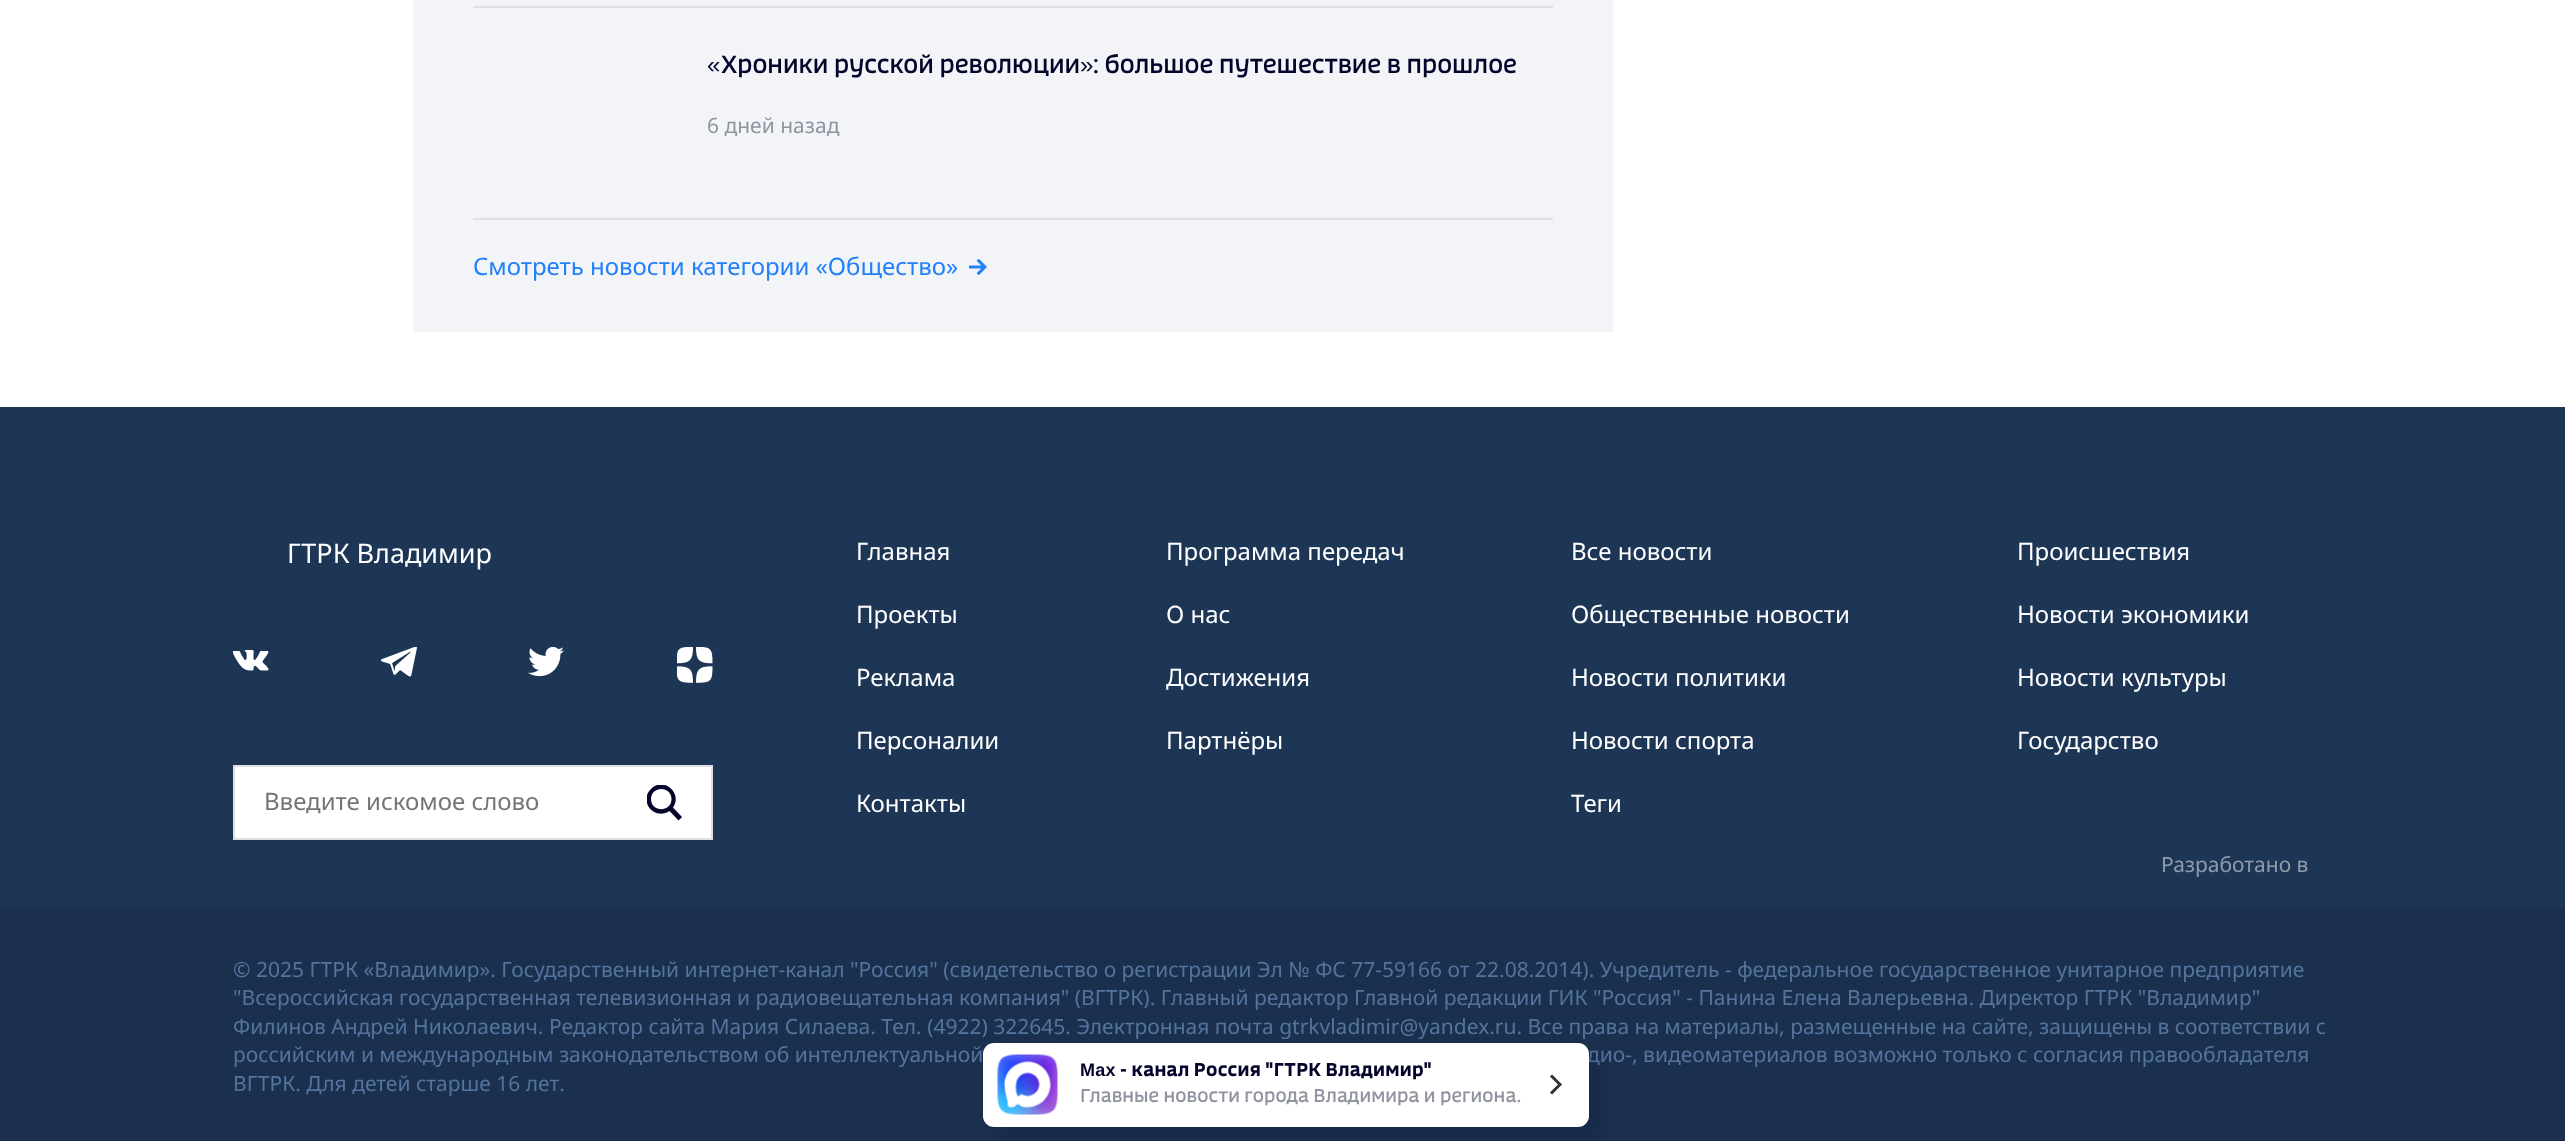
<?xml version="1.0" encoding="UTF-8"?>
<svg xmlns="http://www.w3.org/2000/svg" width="2565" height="1141">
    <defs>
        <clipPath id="clip1"><rect x="647" y="785" width="36" height="36"/></clipPath>
        <filter id="blur1" x="-50%" y="-200%" width="200%" height="500%"><feGaussianBlur stdDeviation="7.5"/></filter>
    </defs>
    <rect width="100%" height="100%" fill="#FFFFFF"/>
    <rect x="413" y="0" width="1200" height="332" fill="#F3F4F8"/>
    <rect x="473" y="6" width="1080" height="2" fill="#DDDFE2"/>
    <rect x="473" y="218" width="1080" height="2" fill="#DDDFE2"/>
    <text x="707" y="73" font-family="Liberation Sans" font-size="24" fill="#05052B">«</text>
    <text x="721" y="73" font-family="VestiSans" font-size="24" fill="#05052B">Хроники русской революции</text>
    <text x="1080" y="73" font-family="Liberation Sans" font-size="24" fill="#05052B">»</text>
    <text x="1093" y="73" font-family="VestiSans" font-size="24" fill="#05052B">: большое путешествие в прошлое</text>
    <text x="707" y="133" font-family="Noto Sans" font-size="21" fill="#9094A0">6 дней назад</text>
    <image x="969" y="258" width="18" height="18" href="img_01.png"/>
    <text x="473" y="275" font-family="Noto Sans" font-size="24" fill="#2180F8">Смотреть новости категории «Общество»</text>
    <rect x="0" y="407" width="2565" height="502" fill="#1E3656"/>
    <text x="287" y="563" font-family="Noto Sans" font-size="27" fill="#FFFFFF">ГТРК Владимир</text>
    <image x="233" y="650" width="36" height="21" href="img_02.png"/>
    <image x="381" y="647" width="36" height="30" href="img_03.png"/>
    <image x="528" y="647" width="36" height="30" href="img_04.png"/>
    <image x="677" y="647" width="36" height="36" href="img_05.png"/>
    <rect x="234" y="766" width="478" height="73" fill="#FFFFFF" stroke="#DDDFE2" stroke-width="2"/>
    <text x="264" y="810" font-family="Noto Sans" font-size="24" fill="#757575">Введите искомое слово</text>
    <g clip-path="url(#clip1)">
        <path d="M 682 817 L 673 807.5 C 683 793.5 663.5 776 651 789 C 638 801.5 655 821 669.5 811 L 678.5 820.5 Z M 651 799 C 651 785.5 671.5 785.5 671.5 799 C 671.5 812.5 651 812.5 651 799 Z" fill="#05052B"/>
    </g>
    <text x="856" y="560" font-family="Noto Sans" font-size="24" fill="#FFFFFF">Главная</text>
    <text x="856" y="623" font-family="Noto Sans" font-size="24" fill="#FFFFFF">Проекты</text>
    <text x="856" y="686" font-family="Noto Sans" font-size="24" fill="#FFFFFF">Реклама</text>
    <text x="856" y="749" font-family="Noto Sans" font-size="24" fill="#FFFFFF">Персоналии</text>
    <text x="856" y="812" font-family="Noto Sans" font-size="24" fill="#FFFFFF">Контакты</text>
    <text x="1166" y="560" font-family="Noto Sans" font-size="24" fill="#FFFFFF">Программа передач</text>
    <text x="1166" y="623" font-family="Noto Sans" font-size="24" fill="#FFFFFF">О нас</text>
    <text x="1166" y="686" font-family="Noto Sans" font-size="24" fill="#FFFFFF">Достижения</text>
    <text x="1166" y="749" font-family="Noto Sans" font-size="24" fill="#FFFFFF">Партнёры</text>
    <text x="1571" y="560" font-family="Noto Sans" font-size="24" fill="#FFFFFF">Все новости</text>
    <text x="1571" y="623" font-family="Noto Sans" font-size="24" fill="#FFFFFF">Общественные новости</text>
    <text x="1571" y="686" font-family="Noto Sans" font-size="24" fill="#FFFFFF">Новости политики</text>
    <text x="1571" y="749" font-family="Noto Sans" font-size="24" fill="#FFFFFF">Новости спорта</text>
    <text x="1571" y="812" font-family="Noto Sans" font-size="24" fill="#FFFFFF">Теги</text>
    <text x="2017" y="560" font-family="Noto Sans" font-size="24" fill="#FFFFFF">Происшествия</text>
    <text x="2017" y="623" font-family="Noto Sans" font-size="24" fill="#FFFFFF">Новости экономики</text>
    <text x="2017" y="686" font-family="Noto Sans" font-size="24" fill="#FFFFFF">Новости культуры</text>
    <text x="2017" y="749" font-family="Noto Sans" font-size="24" fill="#FFFFFF">Государство</text>
    <text x="2161" y="872" font-family="Noto Sans" font-size="21" fill="#8F9BAB">Разработано в</text>
    <rect x="0" y="909" width="2565" height="232" fill="#1A304E"/>
    <text font-family="Noto Sans" font-size="21" fill="#55749D">
        <tspan x="233" y="977">© 2025 ГТРК «Владимир». Государственный интернет-канал "Россия" (свидетельство о регистрации Эл № ФС 77-59166 от 22.08.2014). Учредитель - федеральное государственное унитарное предприятие</tspan>
        <tspan x="233" y="1005">"Всероссийская государственная телевизионная и радиовещательная компания" (ВГТРК). Главный редактор Главной редакции ГИК "Россия" - Панина Елена Валерьевна. Директор ГТРК "Владимир"</tspan>
        <tspan x="233" y="1034">Филинов Андрей Николаевич. Редактор сайта Мария Силаева. Тел. (4922) 322645. Электронная почта gtrkvladimir@yandex.ru. Все права на материалы, размещенные на сайте, защищены в соответствии с</tspan>
        <tspan x="233" y="1062">российским и международным законодательством об интеллектуальной</tspan>
    </text>
    <text x="1587" y="1062" font-family="Noto Sans" font-size="21" fill="#55749D">дио-, видеоматериалов возможно только с согласия правообладателя</text>
    <text x="233" y="1091" font-family="Noto Sans" font-size="21" fill="#55749D">ВГТРК. Для детей старше 16 лет.</text>
    <rect x="998" y="1058" width="606" height="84" rx="11" fill="#05052B" fill-opacity="0.12" filter="url(#blur1)"/>
    <rect x="983" y="1043" width="606" height="84" rx="11" fill="#FFFFFF"/>
    <image x="997" y="1054" width="61" height="61" href="img_06.png"/>
    <text x="1080" y="1076" font-family="Liberation Sans" font-size="18" font-weight="700" letter-spacing="0.3" fill="#05052B">Max</text>
    <text x="1120" y="1076" font-family="VestiSans" font-size="18" font-weight="700" letter-spacing="0.3" fill="#05052B">- канал Россия "ГТРК Владимир"</text>
    <text x="1080" y="1102" font-family="VestiSans" font-size="18" letter-spacing="0.1" fill="#9094A0">Главные новости города Владимира и региона.</text>
    <path d="M 1551 1075.5 L 1560 1084.5 L 1551 1093.5" fill="none" stroke="#333333" stroke-width="3"/>
</svg>
